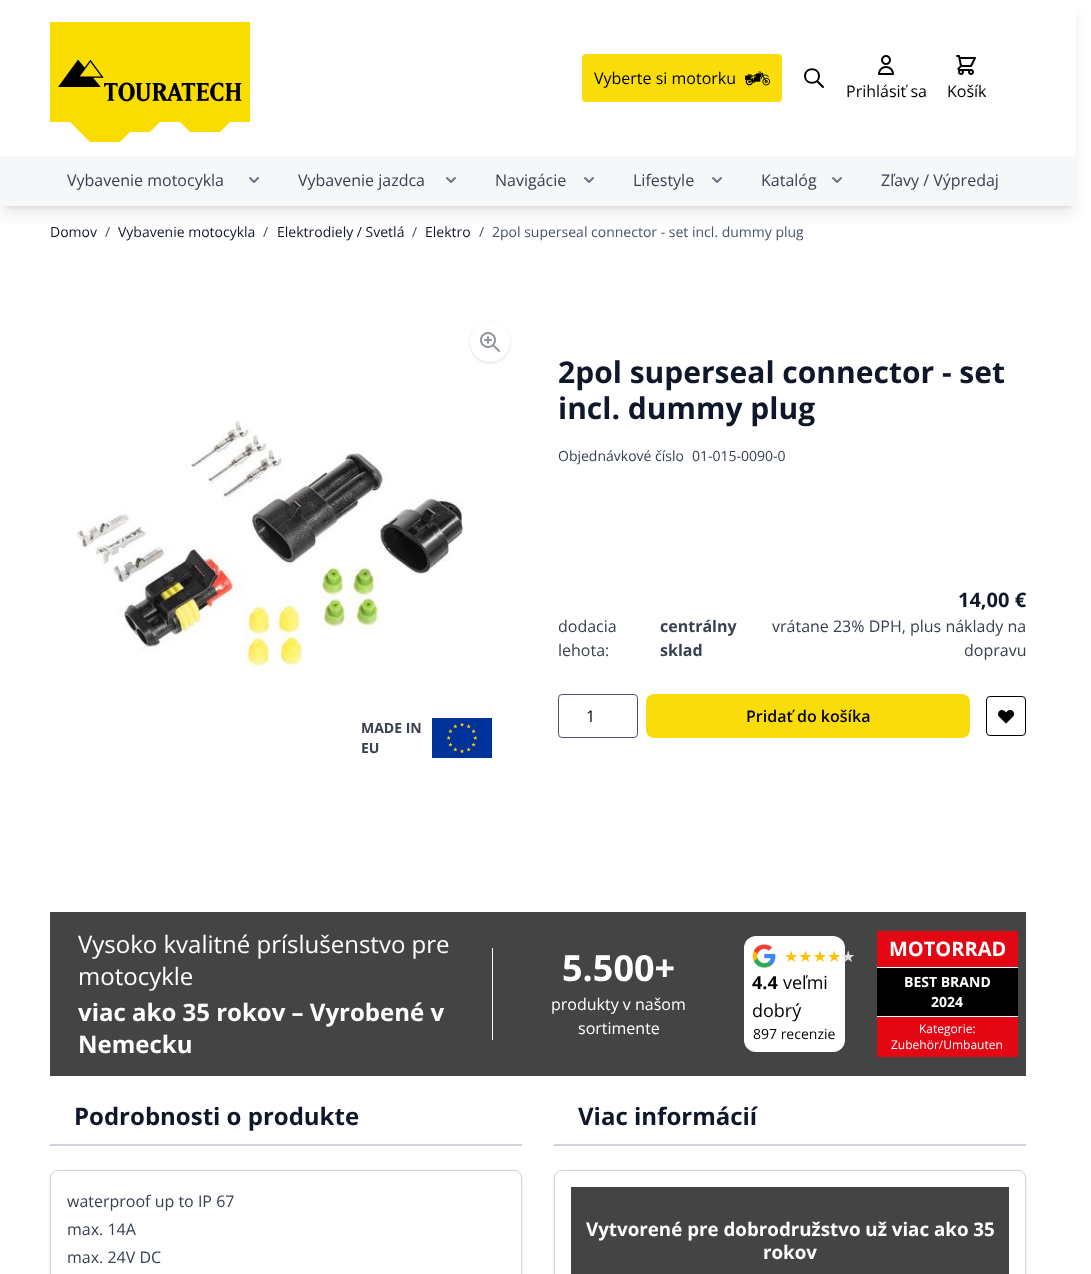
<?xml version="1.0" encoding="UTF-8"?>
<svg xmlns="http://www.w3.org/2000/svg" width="1091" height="1274">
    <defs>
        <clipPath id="clip1"><rect x="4" y="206" width="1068" height="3"/></clipPath>
        <filter id="blur1" x="-50%" y="-200%" width="200%" height="500%"><feGaussianBlur stdDeviation="3"/></filter>
        <clipPath id="clip2"><path d="M 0 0 H 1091 V 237 H 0 Z M 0 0 H 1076 V 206 H 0 Z" clip-rule="evenodd"/></clipPath>
        <filter id="blur2" x="-50%" y="-200%" width="200%" height="500%"><feGaussianBlur stdDeviation="7.5"/></filter>
        <filter id="blur3" x="-50%" y="-200%" width="200%" height="500%"><feGaussianBlur stdDeviation="1"/></filter>
        <filter id="blur4" x="-50%" y="-200%" width="200%" height="500%"><feGaussianBlur stdDeviation="1.5"/></filter>
    </defs>
    <rect width="100%" height="100%" fill="#FFFFFF"/>
    <g clip-path="url(#clip1)">
        <rect x="4" y="8" width="1068" height="198" fill="#000000" fill-opacity="0.1" filter="url(#blur1)"/>
    </g>
    <g clip-path="url(#clip2)">
        <rect x="3" y="13" width="1070" height="200" fill="#000000" fill-opacity="0.1" filter="url(#blur2)"/>
    </g>
    <image x="50" y="22" width="200" height="120" href="img_01.png"/>
    <rect x="582" y="54" width="200" height="48" rx="4" fill="#F9DC0A"/>
    <text x="594" y="84" font-family="Open Sans" font-size="16" fill="#000000">Vyberte si motorku</text>
    <image x="745" y="71" width="25" height="15" href="img_02.png"/>
    <path d="M 823 87 L 817 81 M 819 76 C 819 85 805 85 805 76 C 805 67 819 67 819 76 Z" fill="none" stroke="#000000" stroke-width="2" stroke-linecap="round" stroke-linejoin="round"/>
    <image x="878" y="55" width="16" height="20" href="img_03.png"/>
    <text x="846" y="97" font-family="Open Sans" font-size="16" fill="#000000">Prihlásiť sa</text>
    <image x="956" y="55" width="20" height="20" href="img_04.png"/>
    <text x="947" y="97" font-family="Open Sans" font-size="16" fill="#000000">Košík</text>
    <rect x="0" y="156" width="1076" height="50" fill="#F6F7F8"/>
    <text x="67" y="186" font-family="Open Sans" font-size="16" fill="#374151">Vybavenie motocykla</text>
    <image x="249" y="177" width="10" height="6" href="img_05.png"/>
    <text x="298" y="186" font-family="Open Sans" font-size="16" fill="#374151">Vybavenie jazdca</text>
    <image x="446" y="177" width="10" height="6" href="img_05.png"/>
    <text x="495" y="186" font-family="Open Sans" font-size="16" fill="#374151">Navigácie</text>
    <image x="584" y="177" width="10" height="6" href="img_05.png"/>
    <text x="633" y="186" font-family="Open Sans" font-size="16" fill="#374151">Lifestyle</text>
    <image x="712" y="177" width="10" height="6" href="img_05.png"/>
    <text x="761" y="186" font-family="Open Sans" font-size="16" fill="#374151">Katalóg</text>
    <image x="832" y="177" width="10" height="6" href="img_05.png"/>
    <text x="881" y="186" font-family="Open Sans" font-size="16" fill="#374151">Zľavy / Výpredaj</text>
    <text x="50" y="237" font-family="Open Sans" font-size="14" fill="#0F172A">Domov</text>
    <text x="105" y="237" font-family="Open Sans" font-size="14" fill="#475569">/</text>
    <text x="118" y="237" font-family="Open Sans" font-size="14" fill="#0F172A">Vybavenie motocykla</text>
    <text x="263" y="237" font-family="Open Sans" font-size="14" fill="#475569">/</text>
    <text x="277" y="237" font-family="Open Sans" font-size="14" fill="#0F172A">Elektrodiely / Svetlá</text>
    <text x="412" y="237" font-family="Open Sans" font-size="14" fill="#475569">/</text>
    <text x="425" y="237" font-family="Open Sans" font-size="14" fill="#0F172A">Elektro</text>
    <text x="479" y="237" font-family="Open Sans" font-size="14" fill="#475569">/</text>
    <text x="492" y="237" font-family="Open Sans" font-size="14" fill="#475569">2pol superseal connector - set incl. dummy plug</text>
    <text font-family="Open Sans" font-size="30" font-weight="700" fill="#0F172A">
        <tspan x="558" y="383">2pol superseal connector - set</tspan>
        <tspan x="558" y="419">incl. dummy plug</tspan>
    </text>
    <text x="558" y="461" font-family="Open Sans" font-size="14" fill="#374151">Objednávkové číslo</text>
    <text x="692" y="461" font-family="Open Sans" font-size="14" fill="#374151">01-015-0090-0</text>
    <text font-family="Open Sans" font-size="16" fill="#374151">
        <tspan x="558" y="632">dodacia</tspan>
        <tspan x="558" y="656">lehota:</tspan>
    </text>
    <text font-family="Open Sans" font-size="16" font-weight="700" fill="#374151">
        <tspan x="660" y="632">centrálny</tspan>
        <tspan x="660" y="656">sklad</tspan>
    </text>
    <text x="958" y="607" font-family="Open Sans" font-size="20" font-weight="700" fill="#0F172A">14,00 €</text>
    <text x="772" y="632" font-family="Open Sans" font-size="16" fill="#374151">vrátane 23% DPH, plus náklady na</text>
    <text x="964" y="656" font-family="Open Sans" font-size="16" fill="#374151">dopravu</text>
    <rect x="558.5" y="694.5" width="79" height="43" rx="3.5" fill="none" stroke="#4B5563"/>
    <text x="586" y="722" font-family="Open Sans" font-size="16" fill="#000000">1</text>
    <rect x="646" y="694" width="324" height="44" rx="8" fill="#F9DC0A"/>
    <text x="746" y="722" font-family="Open Sans" font-size="16" font-weight="600" fill="#000000">Pridať do košíka</text>
    <rect x="986.5" y="696.5" width="39" height="39" rx="3.5" fill="none" stroke="#000000"/>
    <image x="998" y="710" width="16" height="14" href="img_06.png"/>
    <rect x="471" y="324" width="38" height="38" rx="19" fill="#000000" fill-opacity="0.1" filter="url(#blur3)"/>
    <rect x="470" y="323" width="40" height="40" rx="20" fill="#000000" fill-opacity="0.1" filter="url(#blur4)"/>
    <circle cx="490" cy="342" r="20" fill="#FFFFFF"/>
    <image x="480" y="332" width="20" height="20" href="img_07.png"/>
    <image x="75" y="419" width="390" height="255" href="img_08.png"/>
    <text font-family="Open Sans" font-size="14" font-weight="700" fill="#374151">
        <tspan x="361" y="733">MADE IN</tspan>
        <tspan x="361" y="753">EU</tspan>
    </text>
    <image x="432" y="718" width="60" height="40" href="img_09.png"/>
    <rect x="50" y="912" width="976" height="164" fill="#444444"/>
    <text font-family="Open Sans" font-size="24" fill="#FFFFFF">
        <tspan x="78" y="953">Vysoko kvalitné príslušenstvo pre</tspan>
        <tspan x="78" y="985">motocykle</tspan>
    </text>
    <text font-family="Open Sans" font-size="24" font-weight="700" fill="#FFFFFF">
        <tspan x="78" y="1021">viac ako 35 rokov – Vyrobené v</tspan>
        <tspan x="78" y="1053">Nemecku</tspan>
    </text>
    <rect x="492" y="948" width="1" height="92" fill="#FFFFFF"/>
    <text x="562" y="981" font-family="Open Sans" font-size="36" font-weight="700" fill="#FFFFFF">5.500+</text>
    <text x="551" y="1010" font-family="Open Sans" font-size="16" fill="#FFFFFF">produkty v našom</text>
    <text x="578" y="1034" font-family="Open Sans" font-size="16" fill="#FFFFFF">sortimente</text>
    <rect x="744" y="936" width="101" height="116" rx="12" fill="#FFFFFF"/>
    <image x="752" y="944" width="24" height="24" href="img_10.png"/>
    <text x="784" y="962" font-family="DejaVu Sans" font-size="16" fill="#FFC107">★★★★</text>
    <text x="841" y="962" font-family="DejaVu Sans" font-size="16" fill="#E0E0E0">★</text>
    <text x="752" y="989" font-family="Open Sans" font-size="18" font-weight="700" fill="#000000">4.4</text>
    <text x="783" y="989" font-family="Open Sans" font-size="18" fill="#000000">veľmi</text>
    <text x="752" y="1017" font-family="Open Sans" font-size="18" fill="#000000">dobrý</text>
    <text x="753" y="1039" font-family="Open Sans" font-size="14" fill="#000000">897 recenzie</text>
    <rect x="877" y="967" width="141" height="50" fill="#FFFFFF"/>
    <rect x="877" y="931" width="141" height="36" fill="#E30613"/>
    <text x="889" y="956" font-family="Open Sans" font-size="20" font-weight="700" fill="#FFFFFF">MOTORRAD</text>
    <rect x="877" y="968" width="141" height="48" fill="#000000"/>
    <text x="904" y="987" font-family="Open Sans" font-size="14" font-weight="700" fill="#FFFFFF">BEST BRAND</text>
    <text x="931" y="1007" font-family="Open Sans" font-size="14" font-weight="700" fill="#FFFFFF">2024</text>
    <rect x="877" y="1017" width="141" height="40" fill="#E30613"/>
    <text x="919" y="1033" font-family="Open Sans" font-size="12" fill="#FFFFFF">Kategorie:</text>
    <text x="891" y="1049" font-family="Open Sans" font-size="12" fill="#FFFFFF">Zubehör/Umbauten</text>
    <rect x="50" y="1144" width="472" height="2" fill="#D1D5DB"/>
    <text x="74" y="1125" font-family="Open Sans" font-size="24" font-weight="700" fill="#0F172A">Podrobnosti o produkte</text>
    <rect x="50" y="1171" width="472" height="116" rx="8" fill="#000000" fill-opacity="0.1" filter="url(#blur4)"/>
    <rect x="50.5" y="1170.5" width="471" height="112" rx="7.5" fill="#FFFFFF" stroke="#D1D5DB"/>
    <text font-family="Open Sans" font-size="16" fill="#374151">
        <tspan x="67" y="1207">waterproof up to IP 67</tspan>
        <tspan x="67" y="1235">max. 14A</tspan>
        <tspan x="67" y="1263">max. 24V DC</tspan>
    </text>
    <rect x="554" y="1144" width="472" height="2" fill="#D1D5DB"/>
    <text x="578" y="1125" font-family="Open Sans" font-size="24" font-weight="700" fill="#0F172A">Viac informácií</text>
    <rect x="554" y="1171" width="472" height="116" rx="8" fill="#000000" fill-opacity="0.1" filter="url(#blur4)"/>
    <rect x="554.5" y="1170.5" width="471" height="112" rx="7.5" fill="#FFFFFF" stroke="#D1D5DB"/>
    <rect x="571" y="1187" width="438" height="87" fill="#444444"/>
    <text x="586" y="1236" font-family="Open Sans" font-size="18.75" font-weight="700" fill="#FFFFFF">Vytvorené pre dobrodružstvo už viac ako 35</text>
    <text x="763" y="1259" font-family="Open Sans" font-size="18.75" font-weight="700" fill="#FFFFFF">rokov</text>
</svg>
